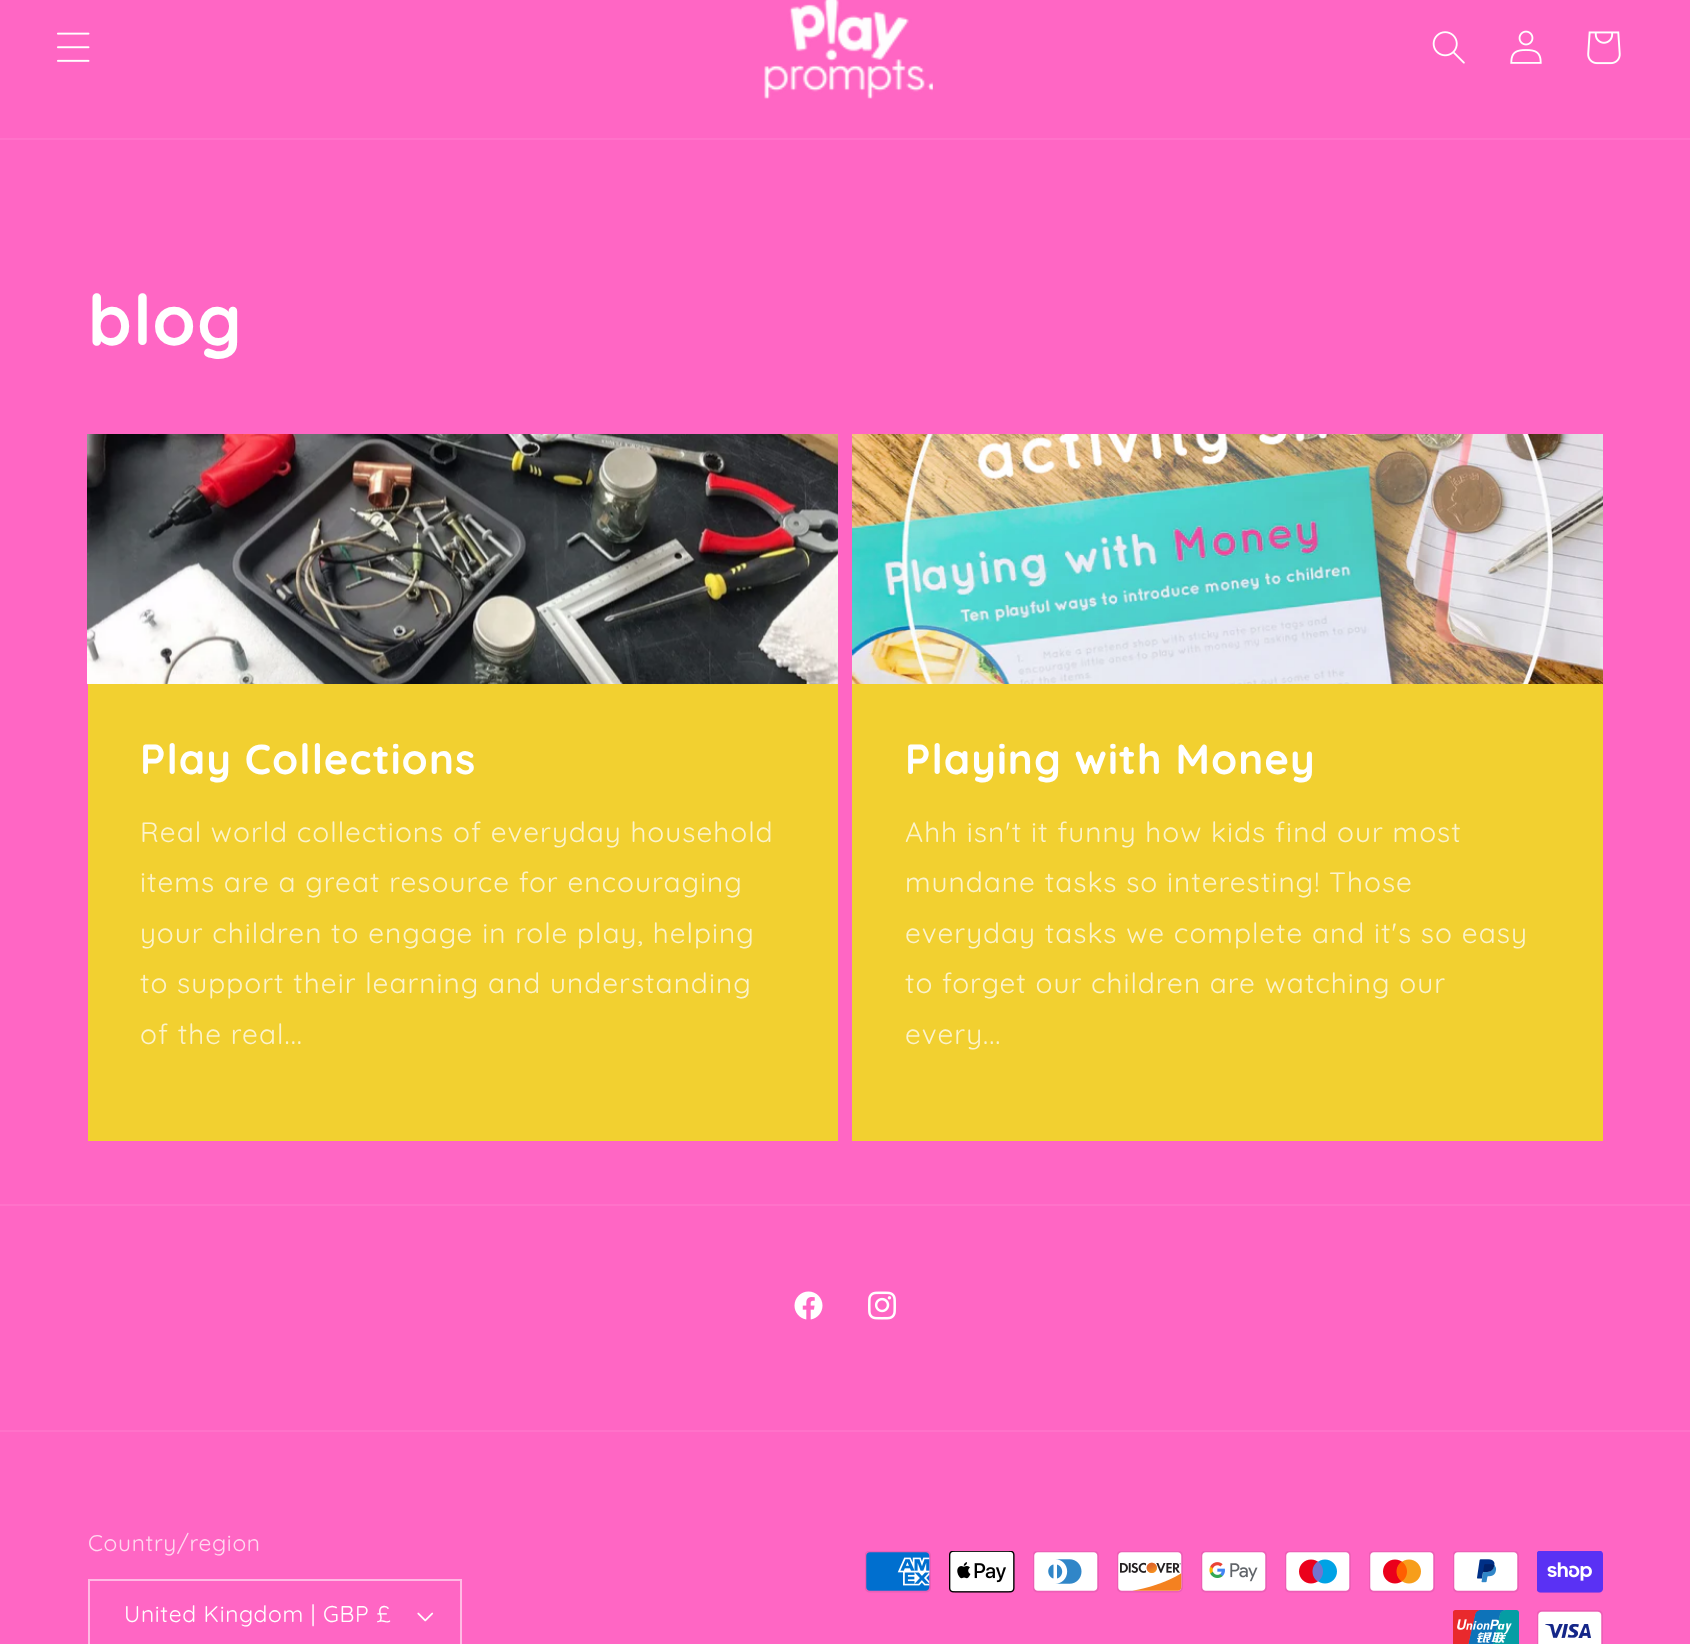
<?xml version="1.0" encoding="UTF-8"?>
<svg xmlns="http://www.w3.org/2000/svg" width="1690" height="1644">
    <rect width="100%" height="100%" fill="#FF66C4"/>
    <rect x="0" y="138" width="1690" height="2" fill="#FF72C9"/>
    <image x="57" y="32" width="33" height="30" href="img_01.png"/>
    <image x="764" y="0" width="169" height="99" href="img_02.png"/>
    <image x="1432" y="31" width="33" height="33" href="img_03.png"/>
    <image x="1510" y="30" width="32" height="34" href="img_04.png"/>
    <image x="1587" y="31" width="34" height="34" href="img_05.png"/>
    <text x="88" y="345" font-family="Quicksand" font-size="70" font-weight="700" letter-spacing="1.05" fill="#FFFFFF">blog</text>
    <rect x="88" y="684" width="750" height="457" fill="#F2D030"/>
    <image x="87" y="434" width="751" height="250" href="img_06.png"/>
    <text x="140" y="774" font-family="Quicksand" font-size="42" font-weight="700" letter-spacing="1.05" fill="#FFFFFF">Play Collections</text>
    <text font-family="Quicksand" font-size="28" letter-spacing="1.05" fill="#FCF3CB">
        <tspan x="140" y="842">Real world collections of everyday household</tspan>
        <tspan x="140" y="892">items are a great resource for encouraging</tspan>
        <tspan x="140" y="943">your children to engage in role play, helping</tspan>
        <tspan x="140" y="993">to support their learning and understanding</tspan>
        <tspan x="140" y="1044">of the real...</tspan>
    </text>
    <rect x="852" y="684" width="751" height="457" fill="#F2D030"/>
    <image x="852" y="434" width="751" height="250" href="img_07.png"/>
    <text x="905" y="774" font-family="Quicksand" font-size="42" font-weight="700" letter-spacing="1.05" fill="#FFFFFF">Playing with Money</text>
    <text font-family="Quicksand" font-size="28" letter-spacing="1.05" fill="#FCF3CB">
        <tspan x="905" y="842">Ahh isn't it funny how kids find our most</tspan>
        <tspan x="905" y="892">mundane tasks so interesting! Those</tspan>
        <tspan x="905" y="943">everyday tasks we complete and it's so easy</tspan>
        <tspan x="905" y="993">to forget our children are watching our</tspan>
        <tspan x="905" y="1044">every...</tspan>
    </text>
    <rect x="0" y="1204" width="1690" height="2" fill="#FF72C9"/>
    <image x="794" y="1291" width="29" height="29" href="img_08.png"/>
    <image x="868" y="1291" width="28" height="29" href="img_09.png"/>
    <rect x="0" y="1430" width="1690" height="2" fill="#FF72C9"/>
    <text x="88" y="1551" font-family="Quicksand" font-size="22.75" letter-spacing="0.7" fill="#FFD9F0">Country/region</text>
    <image x="417" y="1612" width="17" height="10" href="img_10.png"/>
    <rect x="89" y="1580" width="372" height="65" fill="none" stroke="#FFBAE4" stroke-width="2"/>
    <text x="124" y="1622" font-family="Quicksand" font-size="22.75" letter-spacing="0.7" fill="#FFFFFF">United Kingdom | GBP £</text>
    <image x="865" y="1551" width="66" height="42" href="img_11.png"/>
    <image x="949" y="1551" width="66" height="42" href="img_12.png"/>
    <image x="1033" y="1551" width="66" height="42" href="img_13.png"/>
    <image x="1117" y="1551" width="66" height="42" href="img_14.png"/>
    <image x="1201" y="1551" width="66" height="42" href="img_15.png"/>
    <image x="1285" y="1551" width="66" height="42" href="img_16.png"/>
    <image x="1369" y="1551" width="66" height="42" href="img_17.png"/>
    <image x="1453" y="1551" width="66" height="42" href="img_18.png"/>
    <image x="1537" y="1551" width="66" height="42" href="img_19.png"/>
    <image x="1453" y="1610" width="66" height="34" href="img_20.png"/>
    <image x="1537" y="1610" width="66" height="34" href="img_21.png"/>
</svg>
